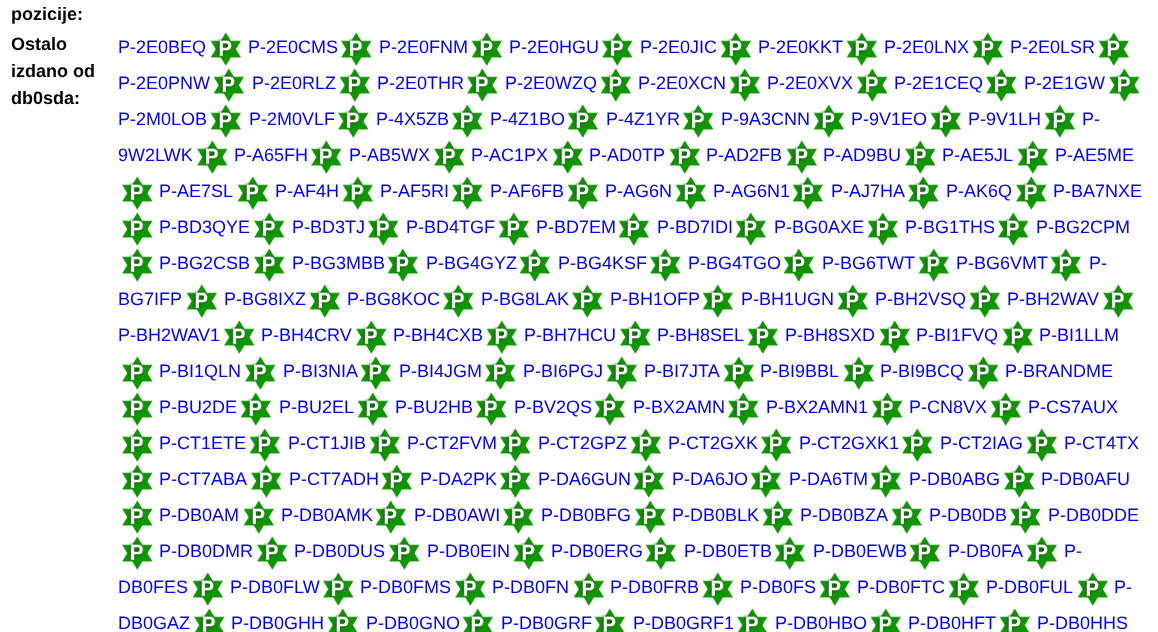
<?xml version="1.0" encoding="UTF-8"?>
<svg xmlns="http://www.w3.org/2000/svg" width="1158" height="632">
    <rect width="100%" height="100%" fill="#FFFFFF"/>
    <text font-family="Liberation Sans" font-size="18" font-weight="700" fill="#000000">
        <tspan x="11" y="20">pozicije:</tspan>
        <tspan x="11" y="50">Ostalo</tspan>
        <tspan x="11" y="77">izdano od</tspan>
        <tspan x="11" y="104">db0sda:</tspan>
    </text>
    <text x="118" y="53" font-family="Liberation Sans" font-size="18" fill="#0000FF">P-2E0BEQ</text>
    <image x="210" y="32" width="31" height="34" href="img_01.png"/>
    <text x="248" y="53" font-family="Liberation Sans" font-size="18" fill="#0000FF">P-2E0CMS</text>
    <image x="341" y="32" width="31" height="34" href="img_02.png"/>
    <text x="379" y="53" font-family="Liberation Sans" font-size="18" fill="#0000FF">P-2E0FNM</text>
    <image x="471" y="32" width="31" height="34" href="img_03.png"/>
    <text x="509" y="53" font-family="Liberation Sans" font-size="18" fill="#0000FF">P-2E0HGU</text>
    <image x="602" y="32" width="31" height="34" href="img_04.png"/>
    <text x="640" y="53" font-family="Liberation Sans" font-size="18" fill="#0000FF">P-2E0JIC</text>
    <image x="720" y="32" width="31" height="34" href="img_03.png"/>
    <text x="758" y="53" font-family="Liberation Sans" font-size="18" fill="#0000FF">P-2E0KKT</text>
    <image x="846" y="32" width="31" height="34" href="img_01.png"/>
    <text x="884" y="53" font-family="Liberation Sans" font-size="18" fill="#0000FF">P-2E0LNX</text>
    <image x="972" y="32" width="31" height="34" href="img_01.png"/>
    <text x="1010" y="53" font-family="Liberation Sans" font-size="18" fill="#0000FF">P-2E0LSR</text>
    <image x="1098" y="32" width="31" height="34" href="img_03.png"/>
    <text x="118" y="89" font-family="Liberation Sans" font-size="18" fill="#0000FF">P-2E0PNW</text>
    <image x="213" y="68" width="31" height="34" href="img_01.png"/>
    <text x="252" y="89" font-family="Liberation Sans" font-size="18" fill="#0000FF">P-2E0RLZ</text>
    <image x="339" y="68" width="31" height="34" href="img_03.png"/>
    <text x="377" y="89" font-family="Liberation Sans" font-size="18" fill="#0000FF">P-2E0THR</text>
    <image x="467" y="68" width="31" height="34" href="img_02.png"/>
    <text x="505" y="89" font-family="Liberation Sans" font-size="18" fill="#0000FF">P-2E0WZQ</text>
    <image x="600" y="68" width="31" height="34" href="img_03.png"/>
    <text x="638" y="89" font-family="Liberation Sans" font-size="18" fill="#0000FF">P-2E0XCN</text>
    <image x="729" y="68" width="31" height="34" href="img_03.png"/>
    <text x="767" y="89" font-family="Liberation Sans" font-size="18" fill="#0000FF">P-2E0XVX</text>
    <image x="857" y="68" width="31" height="34" href="img_02.png"/>
    <text x="894" y="89" font-family="Liberation Sans" font-size="18" fill="#0000FF">P-2E1CEQ</text>
    <image x="986" y="68" width="31" height="34" href="img_02.png"/>
    <text x="1024" y="89" font-family="Liberation Sans" font-size="18" fill="#0000FF">P-2E1GW</text>
    <image x="1109" y="68" width="31" height="34" href="img_02.png"/>
    <text x="118" y="125" font-family="Liberation Sans" font-size="18" fill="#0000FF">P-2M0LOB</text>
    <image x="210" y="104" width="31" height="34" href="img_01.png"/>
    <text x="249" y="125" font-family="Liberation Sans" font-size="18" fill="#0000FF">P-2M0VLF</text>
    <image x="338" y="104" width="31" height="34" href="img_02.png"/>
    <text x="376" y="125" font-family="Liberation Sans" font-size="18" fill="#0000FF">P-4X5ZB</text>
    <image x="452" y="104" width="31" height="34" href="img_02.png"/>
    <text x="490" y="125" font-family="Liberation Sans" font-size="18" fill="#0000FF">P-4Z1BO</text>
    <image x="567" y="104" width="31" height="34" href="img_03.png"/>
    <text x="606" y="125" font-family="Liberation Sans" font-size="18" fill="#0000FF">P-4Z1YR</text>
    <image x="683" y="104" width="31" height="34" href="img_04.png"/>
    <text x="721" y="125" font-family="Liberation Sans" font-size="18" fill="#0000FF">P-9A3CNN</text>
    <image x="813" y="104" width="31" height="34" href="img_01.png"/>
    <text x="851" y="125" font-family="Liberation Sans" font-size="18" fill="#0000FF">P-9V1EO</text>
    <image x="930" y="104" width="31" height="34" href="img_01.png"/>
    <text x="968" y="125" font-family="Liberation Sans" font-size="18" fill="#0000FF">P-9V1LH</text>
    <image x="1044" y="104" width="31" height="34" href="img_03.png"/>
    <text x="1082" y="125" font-family="Liberation Sans" font-size="18" fill="#0000FF">P-</text>
    <text x="118" y="161" font-family="Liberation Sans" font-size="18" fill="#0000FF">9W2LWK</text>
    <image x="197" y="140" width="31" height="34" href="img_02.png"/>
    <text x="234" y="161" font-family="Liberation Sans" font-size="18" fill="#0000FF">P-A65FH</text>
    <image x="311" y="140" width="31" height="34" href="img_02.png"/>
    <text x="349" y="161" font-family="Liberation Sans" font-size="18" fill="#0000FF">P-AB5WX</text>
    <image x="434" y="140" width="31" height="34" href="img_04.png"/>
    <text x="471" y="161" font-family="Liberation Sans" font-size="18" fill="#0000FF">P-AC1PX</text>
    <image x="552" y="140" width="31" height="34" href="img_01.png"/>
    <text x="589" y="161" font-family="Liberation Sans" font-size="18" fill="#0000FF">P-AD0TP</text>
    <image x="669" y="140" width="31" height="34" href="img_01.png"/>
    <text x="706" y="161" font-family="Liberation Sans" font-size="18" fill="#0000FF">P-AD2FB</text>
    <image x="786" y="140" width="31" height="34" href="img_01.png"/>
    <text x="823" y="161" font-family="Liberation Sans" font-size="18" fill="#0000FF">P-AD9BU</text>
    <image x="905" y="140" width="31" height="34" href="img_02.png"/>
    <text x="942" y="161" font-family="Liberation Sans" font-size="18" fill="#0000FF">P-AE5JL</text>
    <image x="1017" y="140" width="31" height="34" href="img_01.png"/>
    <text x="1055" y="161" font-family="Liberation Sans" font-size="18" fill="#0000FF">P-AE5ME</text>
    <image x="122" y="176" width="31" height="34" href="img_02.png"/>
    <text x="159" y="197" font-family="Liberation Sans" font-size="18" fill="#0000FF">P-AE7SL</text>
    <image x="237" y="176" width="31" height="34" href="img_01.png"/>
    <text x="275" y="197" font-family="Liberation Sans" font-size="18" fill="#0000FF">P-AF4H</text>
    <image x="342" y="176" width="31" height="34" href="img_03.png"/>
    <text x="380" y="197" font-family="Liberation Sans" font-size="18" fill="#0000FF">P-AF5RI</text>
    <image x="452" y="176" width="31" height="34" href="img_02.png"/>
    <text x="490" y="197" font-family="Liberation Sans" font-size="18" fill="#0000FF">P-AF6FB</text>
    <image x="567" y="176" width="31" height="34" href="img_03.png"/>
    <text x="605" y="197" font-family="Liberation Sans" font-size="18" fill="#0000FF">P-AG6N</text>
    <image x="675" y="176" width="31" height="34" href="img_01.png"/>
    <text x="713" y="197" font-family="Liberation Sans" font-size="18" fill="#0000FF">P-AG6N1</text>
    <image x="792" y="176" width="31" height="34" href="img_01.png"/>
    <text x="831" y="197" font-family="Liberation Sans" font-size="18" fill="#0000FF">P-AJ7HA</text>
    <image x="908" y="176" width="31" height="34" href="img_02.png"/>
    <text x="946" y="197" font-family="Liberation Sans" font-size="18" fill="#0000FF">P-AK6Q</text>
    <image x="1016" y="176" width="31" height="34" href="img_02.png"/>
    <text x="1053" y="197" font-family="Liberation Sans" font-size="18" fill="#0000FF">P-BA7NXE</text>
    <image x="122" y="212" width="31" height="34" href="img_02.png"/>
    <text x="159" y="233" font-family="Liberation Sans" font-size="18" fill="#0000FF">P-BD3QYE</text>
    <image x="254" y="212" width="31" height="34" href="img_02.png"/>
    <text x="292" y="233" font-family="Liberation Sans" font-size="18" fill="#0000FF">P-BD3TJ</text>
    <image x="368" y="212" width="31" height="34" href="img_04.png"/>
    <text x="406" y="233" font-family="Liberation Sans" font-size="18" fill="#0000FF">P-BD4TGF</text>
    <image x="498" y="212" width="31" height="34" href="img_05.png"/>
    <text x="536" y="233" font-family="Liberation Sans" font-size="18" fill="#0000FF">P-BD7EM</text>
    <image x="618" y="212" width="31" height="34" href="img_01.png"/>
    <text x="657" y="233" font-family="Liberation Sans" font-size="18" fill="#0000FF">P-BD7IDI</text>
    <image x="735" y="212" width="31" height="34" href="img_06.png"/>
    <text x="774" y="233" font-family="Liberation Sans" font-size="18" fill="#0000FF">P-BG0AXE</text>
    <image x="867" y="212" width="31" height="34" href="img_01.png"/>
    <text x="905" y="233" font-family="Liberation Sans" font-size="18" fill="#0000FF">P-BG1THS</text>
    <image x="998" y="212" width="31" height="34" href="img_02.png"/>
    <text x="1036" y="233" font-family="Liberation Sans" font-size="18" fill="#0000FF">P-BG2CPM</text>
    <image x="122" y="248" width="31" height="34" href="img_02.png"/>
    <text x="159" y="269" font-family="Liberation Sans" font-size="18" fill="#0000FF">P-BG2CSB</text>
    <image x="254" y="248" width="31" height="34" href="img_02.png"/>
    <text x="292" y="269" font-family="Liberation Sans" font-size="18" fill="#0000FF">P-BG3MBB</text>
    <image x="387" y="248" width="31" height="34" href="img_03.png"/>
    <text x="426" y="269" font-family="Liberation Sans" font-size="18" fill="#0000FF">P-BG4GYZ</text>
    <image x="519" y="248" width="31" height="34" href="img_01.png"/>
    <text x="558" y="269" font-family="Liberation Sans" font-size="18" fill="#0000FF">P-BG4KSF</text>
    <image x="650" y="248" width="31" height="34" href="img_04.png"/>
    <text x="688" y="269" font-family="Liberation Sans" font-size="18" fill="#0000FF">P-BG4TGO</text>
    <image x="783" y="248" width="31" height="34" href="img_01.png"/>
    <text x="822" y="269" font-family="Liberation Sans" font-size="18" fill="#0000FF">P-BG6TWT</text>
    <image x="918" y="248" width="31" height="34" href="img_01.png"/>
    <text x="956" y="269" font-family="Liberation Sans" font-size="18" fill="#0000FF">P-BG6VMT</text>
    <image x="1050" y="248" width="31" height="34" href="img_03.png"/>
    <text x="1089" y="269" font-family="Liberation Sans" font-size="18" fill="#0000FF">P-</text>
    <text x="118" y="305" font-family="Liberation Sans" font-size="18" fill="#0000FF">BG7IFP</text>
    <image x="186" y="284" width="31" height="34" href="img_01.png"/>
    <text x="224" y="305" font-family="Liberation Sans" font-size="18" fill="#0000FF">P-BG8IXZ</text>
    <image x="309" y="284" width="31" height="34" href="img_03.png"/>
    <text x="347" y="305" font-family="Liberation Sans" font-size="18" fill="#0000FF">P-BG8KOC</text>
    <image x="443" y="284" width="31" height="34" href="img_04.png"/>
    <text x="481" y="305" font-family="Liberation Sans" font-size="18" fill="#0000FF">P-BG8LAK</text>
    <image x="572" y="284" width="31" height="34" href="img_04.png"/>
    <text x="610" y="305" font-family="Liberation Sans" font-size="18" fill="#0000FF">P-BH1OFP</text>
    <image x="702" y="284" width="31" height="34" href="img_01.png"/>
    <text x="741" y="305" font-family="Liberation Sans" font-size="18" fill="#0000FF">P-BH1UGN</text>
    <image x="837" y="284" width="31" height="34" href="img_01.png"/>
    <text x="875" y="305" font-family="Liberation Sans" font-size="18" fill="#0000FF">P-BH2VSQ</text>
    <image x="969" y="284" width="31" height="34" href="img_01.png"/>
    <text x="1007" y="305" font-family="Liberation Sans" font-size="18" fill="#0000FF">P-BH2WAV</text>
    <image x="1103" y="284" width="31" height="34" href="img_02.png"/>
    <text x="118" y="341" font-family="Liberation Sans" font-size="18" fill="#0000FF">P-BH2WAV1</text>
    <image x="224" y="320" width="31" height="34" href="img_02.png"/>
    <text x="261" y="341" font-family="Liberation Sans" font-size="18" fill="#0000FF">P-BH4CRV</text>
    <image x="356" y="320" width="31" height="34" href="img_04.png"/>
    <text x="393" y="341" font-family="Liberation Sans" font-size="18" fill="#0000FF">P-BH4CXB</text>
    <image x="486" y="320" width="31" height="34" href="img_07.png"/>
    <text x="524" y="341" font-family="Liberation Sans" font-size="18" fill="#0000FF">P-BH7HCU</text>
    <image x="620" y="320" width="31" height="34" href="img_04.png"/>
    <text x="657" y="341" font-family="Liberation Sans" font-size="18" fill="#0000FF">P-BH8SEL</text>
    <image x="747" y="320" width="31" height="34" href="img_03.png"/>
    <text x="785" y="341" font-family="Liberation Sans" font-size="18" fill="#0000FF">P-BH8SXD</text>
    <image x="879" y="320" width="31" height="34" href="img_01.png"/>
    <text x="916" y="341" font-family="Liberation Sans" font-size="18" fill="#0000FF">P-BI1FVQ</text>
    <image x="1002" y="320" width="31" height="34" href="img_01.png"/>
    <text x="1039" y="341" font-family="Liberation Sans" font-size="18" fill="#0000FF">P-BI1LLM</text>
    <image x="122" y="356" width="31" height="34" href="img_02.png"/>
    <text x="159" y="377" font-family="Liberation Sans" font-size="18" fill="#0000FF">P-BI1QLN</text>
    <image x="245" y="356" width="31" height="34" href="img_02.png"/>
    <text x="283" y="377" font-family="Liberation Sans" font-size="18" fill="#0000FF">P-BI3NIA</text>
    <image x="360" y="356" width="31" height="34" href="img_03.png"/>
    <text x="399" y="377" font-family="Liberation Sans" font-size="18" fill="#0000FF">P-BI4JGM</text>
    <image x="485" y="356" width="31" height="34" href="img_02.png"/>
    <text x="523" y="377" font-family="Liberation Sans" font-size="18" fill="#0000FF">P-BI6PGJ</text>
    <image x="606" y="356" width="31" height="34" href="img_03.png"/>
    <text x="644" y="377" font-family="Liberation Sans" font-size="18" fill="#0000FF">P-BI7JTA</text>
    <image x="723" y="356" width="31" height="34" href="img_03.png"/>
    <text x="760" y="377" font-family="Liberation Sans" font-size="18" fill="#0000FF">P-BI9BBL</text>
    <image x="843" y="356" width="31" height="34" href="img_01.png"/>
    <text x="880" y="377" font-family="Liberation Sans" font-size="18" fill="#0000FF">P-BI9BCQ</text>
    <image x="968" y="356" width="31" height="34" href="img_02.png"/>
    <text x="1005" y="377" font-family="Liberation Sans" font-size="18" fill="#0000FF">P-BRANDME</text>
    <image x="122" y="392" width="31" height="34" href="img_02.png"/>
    <text x="159" y="413" font-family="Liberation Sans" font-size="18" fill="#0000FF">P-BU2DE</text>
    <image x="240" y="392" width="31" height="34" href="img_01.png"/>
    <text x="279" y="413" font-family="Liberation Sans" font-size="18" fill="#0000FF">P-BU2EL</text>
    <image x="357" y="392" width="31" height="34" href="img_03.png"/>
    <text x="395" y="413" font-family="Liberation Sans" font-size="18" fill="#0000FF">P-BU2HB</text>
    <image x="476" y="392" width="31" height="34" href="img_02.png"/>
    <text x="514" y="413" font-family="Liberation Sans" font-size="18" fill="#0000FF">P-BV2QS</text>
    <image x="594" y="392" width="31" height="34" href="img_03.png"/>
    <text x="633" y="413" font-family="Liberation Sans" font-size="18" fill="#0000FF">P-BX2AMN</text>
    <image x="728" y="392" width="31" height="34" href="img_04.png"/>
    <text x="766" y="413" font-family="Liberation Sans" font-size="18" fill="#0000FF">P-BX2AMN1</text>
    <image x="872" y="392" width="31" height="34" href="img_02.png"/>
    <text x="909" y="413" font-family="Liberation Sans" font-size="18" fill="#0000FF">P-CN8VX</text>
    <image x="990" y="392" width="31" height="34" href="img_01.png"/>
    <text x="1028" y="413" font-family="Liberation Sans" font-size="18" fill="#0000FF">P-CS7AUX</text>
    <image x="122" y="428" width="31" height="34" href="img_02.png"/>
    <text x="159" y="449" font-family="Liberation Sans" font-size="18" fill="#0000FF">P-CT1ETE</text>
    <image x="249" y="428" width="31" height="34" href="img_01.png"/>
    <text x="288" y="449" font-family="Liberation Sans" font-size="18" fill="#0000FF">P-CT1JIB</text>
    <image x="369" y="428" width="31" height="34" href="img_03.png"/>
    <text x="407" y="449" font-family="Liberation Sans" font-size="18" fill="#0000FF">P-CT2FVM</text>
    <image x="500" y="428" width="31" height="34" href="img_02.png"/>
    <text x="538" y="449" font-family="Liberation Sans" font-size="18" fill="#0000FF">P-CT2GPZ</text>
    <image x="630" y="428" width="31" height="34" href="img_01.png"/>
    <text x="668" y="449" font-family="Liberation Sans" font-size="18" fill="#0000FF">P-CT2GXK</text>
    <image x="761" y="428" width="31" height="34" href="img_08.png"/>
    <text x="799" y="449" font-family="Liberation Sans" font-size="18" fill="#0000FF">P-CT2GXK1</text>
    <image x="902" y="428" width="31" height="34" href="img_02.png"/>
    <text x="940" y="449" font-family="Liberation Sans" font-size="18" fill="#0000FF">P-CT2IAG</text>
    <image x="1026" y="428" width="31" height="34" href="img_05.png"/>
    <text x="1064" y="449" font-family="Liberation Sans" font-size="18" fill="#0000FF">P-CT4TX</text>
    <image x="122" y="464" width="31" height="34" href="img_02.png"/>
    <text x="159" y="485" font-family="Liberation Sans" font-size="18" fill="#0000FF">P-CT7ABA</text>
    <image x="251" y="464" width="31" height="34" href="img_02.png"/>
    <text x="289" y="485" font-family="Liberation Sans" font-size="18" fill="#0000FF">P-CT7ADH</text>
    <image x="381" y="464" width="31" height="34" href="img_03.png"/>
    <text x="420" y="485" font-family="Liberation Sans" font-size="18" fill="#0000FF">P-DA2PK</text>
    <image x="500" y="464" width="31" height="34" href="img_02.png"/>
    <text x="538" y="485" font-family="Liberation Sans" font-size="18" fill="#0000FF">P-DA6GUN</text>
    <image x="633" y="464" width="31" height="34" href="img_01.png"/>
    <text x="672" y="485" font-family="Liberation Sans" font-size="18" fill="#0000FF">P-DA6JO</text>
    <image x="750" y="464" width="31" height="34" href="img_06.png"/>
    <text x="789" y="485" font-family="Liberation Sans" font-size="18" fill="#0000FF">P-DA6TM</text>
    <image x="870" y="464" width="31" height="34" href="img_01.png"/>
    <text x="909" y="485" font-family="Liberation Sans" font-size="18" fill="#0000FF">P-DB0ABG</text>
    <image x="1004" y="464" width="31" height="34" href="img_02.png"/>
    <text x="1041" y="485" font-family="Liberation Sans" font-size="18" fill="#0000FF">P-DB0AFU</text>
    <image x="122" y="500" width="31" height="34" href="img_02.png"/>
    <text x="159" y="521" font-family="Liberation Sans" font-size="18" fill="#0000FF">P-DB0AM</text>
    <image x="243" y="500" width="31" height="34" href="img_01.png"/>
    <text x="281" y="521" font-family="Liberation Sans" font-size="18" fill="#0000FF">P-DB0AMK</text>
    <image x="375" y="500" width="31" height="34" href="img_03.png"/>
    <text x="414" y="521" font-family="Liberation Sans" font-size="18" fill="#0000FF">P-DB0AWI</text>
    <image x="503" y="500" width="31" height="34" href="img_02.png"/>
    <text x="541" y="521" font-family="Liberation Sans" font-size="18" fill="#0000FF">P-DB0BFG</text>
    <image x="635" y="500" width="31" height="34" href="img_04.png"/>
    <text x="672" y="521" font-family="Liberation Sans" font-size="18" fill="#0000FF">P-DB0BLK</text>
    <image x="762" y="500" width="31" height="34" href="img_09.png"/>
    <text x="800" y="521" font-family="Liberation Sans" font-size="18" fill="#0000FF">P-DB0BZA</text>
    <image x="891" y="500" width="31" height="34" href="img_01.png"/>
    <text x="929" y="521" font-family="Liberation Sans" font-size="18" fill="#0000FF">P-DB0DB</text>
    <image x="1010" y="500" width="31" height="34" href="img_02.png"/>
    <text x="1048" y="521" font-family="Liberation Sans" font-size="18" fill="#0000FF">P-DB0DDE</text>
    <image x="122" y="536" width="31" height="34" href="img_02.png"/>
    <text x="159" y="557" font-family="Liberation Sans" font-size="18" fill="#0000FF">P-DB0DMR</text>
    <image x="257" y="536" width="31" height="34" href="img_02.png"/>
    <text x="294" y="557" font-family="Liberation Sans" font-size="18" fill="#0000FF">P-DB0DUS</text>
    <image x="389" y="536" width="31" height="34" href="img_04.png"/>
    <text x="427" y="557" font-family="Liberation Sans" font-size="18" fill="#0000FF">P-DB0EIN</text>
    <image x="513" y="536" width="31" height="34" href="img_01.png"/>
    <text x="551" y="557" font-family="Liberation Sans" font-size="18" fill="#0000FF">P-DB0ERG</text>
    <image x="645" y="536" width="31" height="34" href="img_01.png"/>
    <text x="684" y="557" font-family="Liberation Sans" font-size="18" fill="#0000FF">P-DB0ETB</text>
    <image x="774" y="536" width="31" height="34" href="img_01.png"/>
    <text x="813" y="557" font-family="Liberation Sans" font-size="18" fill="#0000FF">P-DB0EWB</text>
    <image x="909" y="536" width="31" height="34" href="img_01.png"/>
    <text x="948" y="557" font-family="Liberation Sans" font-size="18" fill="#0000FF">P-DB0FA</text>
    <image x="1026" y="536" width="31" height="34" href="img_05.png"/>
    <text x="1064" y="557" font-family="Liberation Sans" font-size="18" fill="#0000FF">P-</text>
    <text x="118" y="593" font-family="Liberation Sans" font-size="18" fill="#0000FF">DB0FES</text>
    <image x="192" y="572" width="31" height="34" href="img_01.png"/>
    <text x="230" y="593" font-family="Liberation Sans" font-size="18" fill="#0000FF">P-DB0FLW</text>
    <image x="323" y="572" width="31" height="34" href="img_02.png"/>
    <text x="360" y="593" font-family="Liberation Sans" font-size="18" fill="#0000FF">P-DB0FMS</text>
    <image x="455" y="572" width="31" height="34" href="img_02.png"/>
    <text x="492" y="593" font-family="Liberation Sans" font-size="18" fill="#0000FF">P-DB0FN</text>
    <image x="573" y="572" width="31" height="34" href="img_03.png"/>
    <text x="610" y="593" font-family="Liberation Sans" font-size="18" fill="#0000FF">P-DB0FRB</text>
    <image x="702" y="572" width="31" height="34" href="img_01.png"/>
    <text x="740" y="593" font-family="Liberation Sans" font-size="18" fill="#0000FF">P-DB0FS</text>
    <image x="819" y="572" width="31" height="34" href="img_01.png"/>
    <text x="857" y="593" font-family="Liberation Sans" font-size="18" fill="#0000FF">P-DB0FTC</text>
    <image x="948" y="572" width="31" height="34" href="img_01.png"/>
    <text x="986" y="593" font-family="Liberation Sans" font-size="18" fill="#0000FF">P-DB0FUL</text>
    <image x="1077" y="572" width="31" height="34" href="img_03.png"/>
    <text x="1114" y="593" font-family="Liberation Sans" font-size="18" fill="#0000FF">P-</text>
    <text x="118" y="629" font-family="Liberation Sans" font-size="18" fill="#0000FF">DB0GAZ</text>
    <image x="194" y="608" width="31" height="24" href="img_10.png"/>
    <text x="231" y="629" font-family="Liberation Sans" font-size="18" fill="#0000FF">P-DB0GHH</text>
    <image x="327" y="608" width="31" height="24" href="img_11.png"/>
    <text x="366" y="629" font-family="Liberation Sans" font-size="18" fill="#0000FF">P-DB0GNO</text>
    <image x="462" y="608" width="31" height="24" href="img_11.png"/>
    <text x="501" y="629" font-family="Liberation Sans" font-size="18" fill="#0000FF">P-DB0GRF</text>
    <image x="594" y="608" width="31" height="24" href="img_11.png"/>
    <text x="633" y="629" font-family="Liberation Sans" font-size="18" fill="#0000FF">P-DB0GRF1</text>
    <image x="737" y="608" width="31" height="24" href="img_12.png"/>
    <text x="775" y="629" font-family="Liberation Sans" font-size="18" fill="#0000FF">P-DB0HBO</text>
    <image x="870" y="608" width="31" height="24" href="img_13.png"/>
    <text x="908" y="629" font-family="Liberation Sans" font-size="18" fill="#0000FF">P-DB0HFT</text>
    <image x="999" y="608" width="31" height="24" href="img_13.png"/>
    <text x="1037" y="629" font-family="Liberation Sans" font-size="18" fill="#0000FF">P-DB0HHS</text>
</svg>
